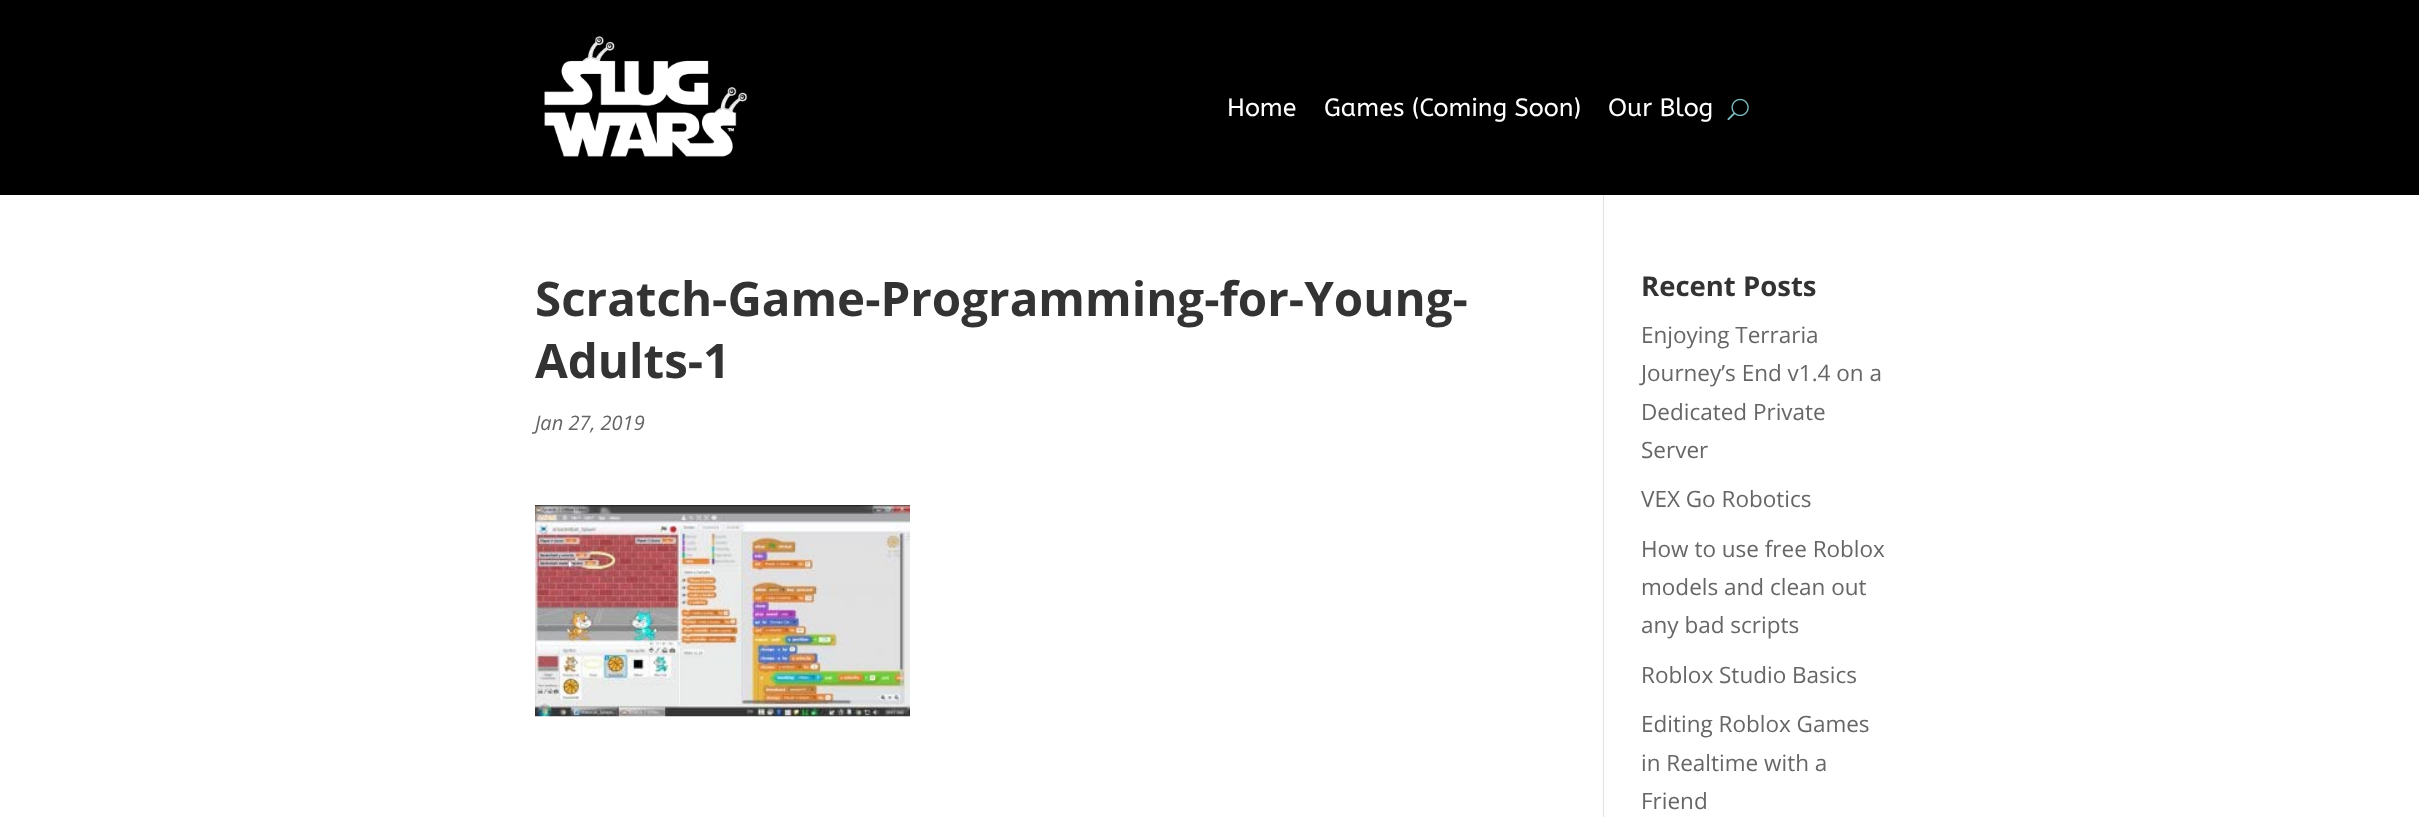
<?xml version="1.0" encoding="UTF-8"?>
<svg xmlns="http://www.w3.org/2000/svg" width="2419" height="817">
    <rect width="100%" height="100%" fill="#FFFFFF"/>
    <rect x="0" y="0" width="2419" height="195" fill="#000000"/>
    <image x="544" y="36" width="210" height="128" href="img_01.png"/>
    <text x="1227" y="116" font-family="ABeeZee" font-size="25" fill="#FFFFFF">Home</text>
    <text x="1324" y="116" font-family="ABeeZee" font-size="25" fill="#FFFFFF">Games (Coming Soon)</text>
    <text x="1608" y="116" font-family="ABeeZee" font-size="25" fill="#FFFFFF">Our Blog</text>
    <image x="1727" y="98" width="22" height="23" href="img_02.png"/>
    <rect x="1603" y="195" width="1" height="622" fill="#E2E2E2"/>
    <text font-family="Open Sans" font-size="47.5" font-weight="700" fill="#333333">
        <tspan x="535" y="316">Scratch-Game-Programming-for-Young-</tspan>
        <tspan x="535" y="378">Adults-1</tspan>
    </text>
    <text x="535" y="430" font-family="Open Sans" font-size="20" font-style="italic" fill="#666666">Jan 27, 2019</text>
    <image x="535" y="505" width="375" height="212" href="img_03.png"/>
    <text x="1641" y="296" font-family="Open Sans" font-size="27.5" font-weight="700" fill="#333333">Recent Posts</text>
    <text font-family="Open Sans" font-size="22.5" fill="#666666">
        <tspan x="1641" y="343">Enjoying Terraria</tspan>
        <tspan x="1641" y="381">Journey’s End v1.4 on a</tspan>
        <tspan x="1641" y="420">Dedicated Private</tspan>
        <tspan x="1641" y="458">Server</tspan>
    </text>
    <text x="1641" y="507" font-family="Open Sans" font-size="22.5" fill="#666666">VEX Go Robotics</text>
    <text font-family="Open Sans" font-size="22.5" fill="#666666">
        <tspan x="1641" y="557">How to use free Roblox</tspan>
        <tspan x="1641" y="595">models and clean out</tspan>
        <tspan x="1641" y="633">any bad scripts</tspan>
    </text>
    <text x="1641" y="683" font-family="Open Sans" font-size="22.5" fill="#666666">Roblox Studio Basics</text>
    <text font-family="Open Sans" font-size="22.5" fill="#666666">
        <tspan x="1641" y="732">Editing Roblox Games</tspan>
        <tspan x="1641" y="771">in Realtime with a</tspan>
        <tspan x="1641" y="809">Friend</tspan>
    </text>
</svg>
